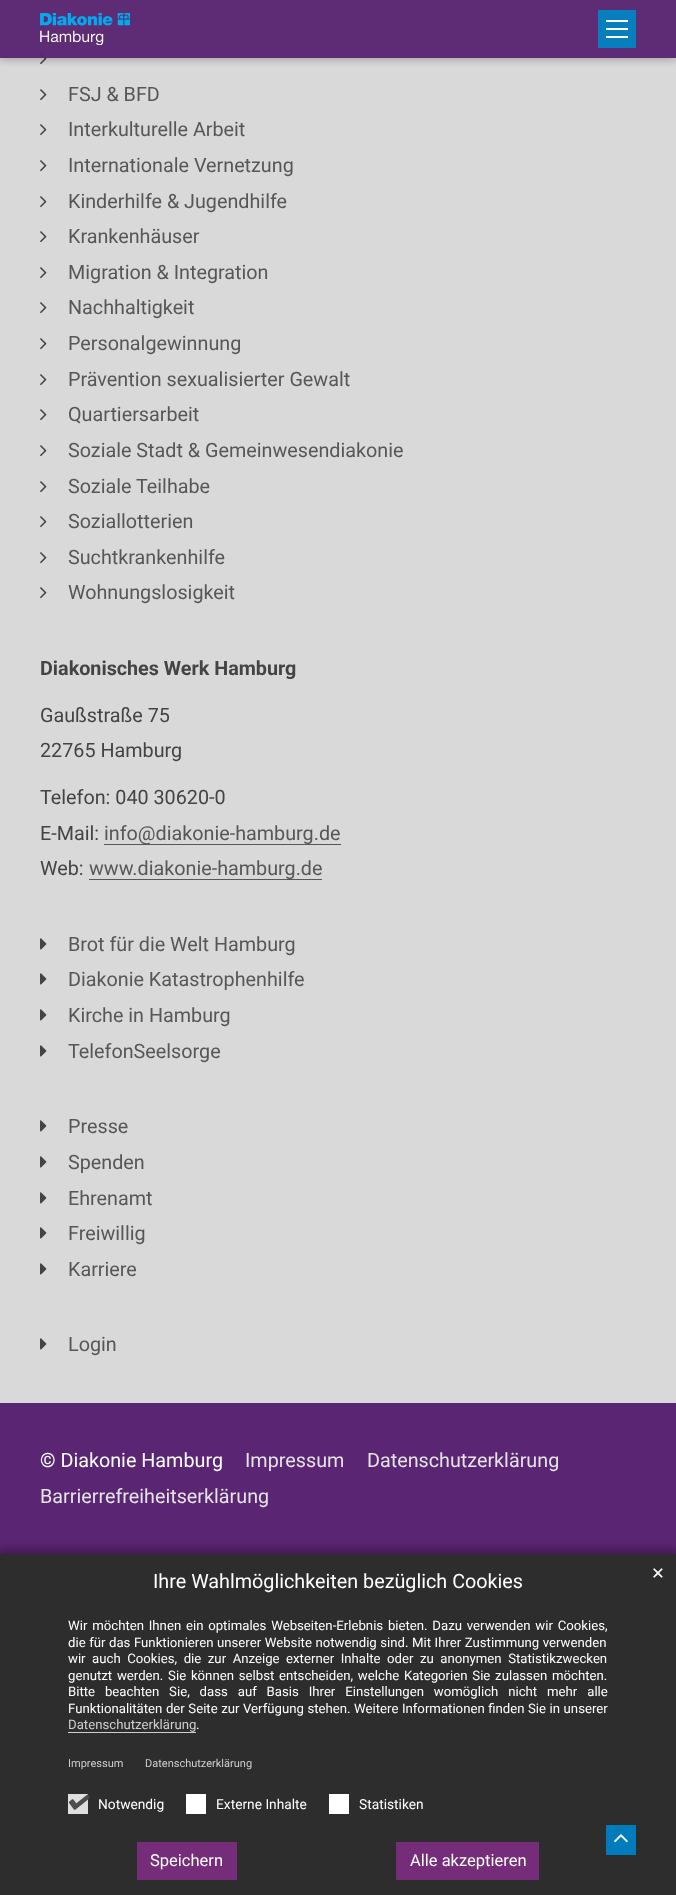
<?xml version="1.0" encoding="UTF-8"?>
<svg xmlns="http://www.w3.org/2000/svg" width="676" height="1895">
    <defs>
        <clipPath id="clip1"><rect x="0" y="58" width="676" height="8"/></clipPath>
        <filter id="blur1" x="-50%" y="-200%" width="200%" height="500%"><feGaussianBlur stdDeviation="5"/></filter>
    </defs>
    <rect width="100%" height="100%" fill="#D9D9D9"/>
    <image x="40" y="17" width="7" height="12" href="img_02.png"/>
    <image x="40" y="53" width="7" height="12" href="img_02.png"/>
    <g clip-path="url(#clip1)">
        <rect x="-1" y="-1" width="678" height="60" fill="#000000" fill-opacity="0.29" filter="url(#blur1)"/>
    </g>
    <rect x="0" y="0" width="676" height="58" fill="#5A2572" fill-opacity="0.97"/>
    <image x="40" y="13" width="90" height="32" href="img_01.png"/>
    <rect x="598" y="10" width="38" height="38" fill="#077FBE"/>
    <rect x="606" y="28" width="22" height="2" fill="#FEFEFE"/>
    <rect x="606" y="20" width="22" height="2" fill="#FEFEFE"/>
    <rect x="606" y="36" width="22" height="2" fill="#FEFEFE"/>
    <image x="40" y="89" width="7" height="12" href="img_02.png"/>
    <text x="68" y="101" font-family="Roboto" font-size="19.75" fill="#575757">FSJ &amp; BFD</text>
    <image x="40" y="124" width="7" height="12" href="img_02.png"/>
    <text x="68" y="136" font-family="Roboto" font-size="19.75" fill="#575757">Interkulturelle Arbeit</text>
    <image x="40" y="160" width="7" height="12" href="img_02.png"/>
    <text x="68" y="172" font-family="Roboto" font-size="19.75" fill="#575757">Internationale Vernetzung</text>
    <image x="40" y="196" width="7" height="12" href="img_02.png"/>
    <text x="68" y="208" font-family="Roboto" font-size="19.75" fill="#575757">Kinderhilfe &amp; Jugendhilfe</text>
    <image x="40" y="231" width="7" height="12" href="img_02.png"/>
    <text x="68" y="243" font-family="Roboto" font-size="19.75" fill="#575757">Krankenhäuser</text>
    <image x="40" y="267" width="7" height="12" href="img_02.png"/>
    <text x="68" y="279" font-family="Roboto" font-size="19.75" fill="#575757">Migration &amp; Integration</text>
    <image x="40" y="302" width="7" height="12" href="img_02.png"/>
    <text x="68" y="314" font-family="Roboto" font-size="19.75" fill="#575757">Nachhaltigkeit</text>
    <image x="40" y="338" width="7" height="12" href="img_02.png"/>
    <text x="68" y="350" font-family="Roboto" font-size="19.75" fill="#575757">Personalgewinnung</text>
    <image x="40" y="374" width="7" height="12" href="img_02.png"/>
    <text x="68" y="386" font-family="Roboto" font-size="19.75" fill="#575757">Prävention sexualisierter Gewalt</text>
    <image x="40" y="409" width="7" height="12" href="img_02.png"/>
    <text x="68" y="421" font-family="Roboto" font-size="19.75" fill="#575757">Quartiersarbeit</text>
    <image x="40" y="445" width="7" height="12" href="img_02.png"/>
    <text x="68" y="457" font-family="Roboto" font-size="19.75" fill="#575757">Soziale Stadt &amp; Gemeinwesendiakonie</text>
    <image x="40" y="481" width="7" height="12" href="img_02.png"/>
    <text x="68" y="493" font-family="Roboto" font-size="19.75" fill="#575757">Soziale Teilhabe</text>
    <image x="40" y="516" width="7" height="12" href="img_02.png"/>
    <text x="68" y="528" font-family="Roboto" font-size="19.75" fill="#575757">Soziallotterien</text>
    <image x="40" y="552" width="7" height="12" href="img_02.png"/>
    <text x="68" y="564" font-family="Roboto" font-size="19.75" fill="#575757">Suchtkrankenhilfe</text>
    <image x="40" y="587" width="7" height="12" href="img_02.png"/>
    <text x="68" y="599" font-family="Roboto" font-size="19.75" fill="#575757">Wohnungslosigkeit</text>
    <text x="40" y="675" font-family="Roboto" font-size="19.75" font-weight="700" fill="#444444">Diakonisches Werk Hamburg</text>
    <text font-family="Roboto" font-size="19.75" fill="#444444">
        <tspan x="40" y="722">Gaußstraße 75</tspan>
        <tspan x="40" y="757">22765 Hamburg</tspan>
    </text>
    <text font-family="Roboto" font-size="19.75" fill="#444444">
        <tspan x="40" y="804">Telefon: 040 30620-0</tspan>
        <tspan x="40" y="840">E-Mail:</tspan>
    </text>
    <rect x="104" y="844" width="237" height="1" fill="#575757"/>
    <text x="104" y="840" font-family="Roboto" font-size="19.75" fill="#575757">info@diakonie-hamburg.de</text>
    <text x="40" y="875" font-family="Roboto" font-size="19.75" fill="#444444">Web:</text>
    <rect x="89" y="879" width="233" height="1" fill="#575757"/>
    <text x="89" y="875" font-family="Roboto" font-size="19.75" fill="#575757">www.diakonie-hamburg.de</text>
    <image x="40" y="938" width="7" height="12" href="img_03.png"/>
    <text x="68" y="951" font-family="Roboto" font-size="19.75" fill="#575757">Brot für die Welt Hamburg</text>
    <image x="40" y="973" width="7" height="12" href="img_03.png"/>
    <text x="68" y="986" font-family="Roboto" font-size="19.75" fill="#575757">Diakonie Katastrophenhilfe</text>
    <image x="40" y="1009" width="7" height="12" href="img_03.png"/>
    <text x="68" y="1022" font-family="Roboto" font-size="19.75" fill="#575757">Kirche in Hamburg</text>
    <image x="40" y="1045" width="7" height="12" href="img_03.png"/>
    <text x="68" y="1058" font-family="Roboto" font-size="19.75" fill="#575757">TelefonSeelsorge</text>
    <image x="40" y="1120" width="7" height="12" href="img_03.png"/>
    <text x="68" y="1133" font-family="Roboto" font-size="19.75" fill="#575757">Presse</text>
    <image x="40" y="1156" width="7" height="12" href="img_03.png"/>
    <text x="68" y="1169" font-family="Roboto" font-size="19.75" fill="#575757">Spenden</text>
    <image x="40" y="1192" width="7" height="12" href="img_03.png"/>
    <text x="68" y="1205" font-family="Roboto" font-size="19.75" fill="#575757">Ehrenamt</text>
    <image x="40" y="1227" width="7" height="12" href="img_03.png"/>
    <text x="68" y="1240" font-family="Roboto" font-size="19.75" fill="#575757">Freiwillig</text>
    <image x="40" y="1263" width="7" height="12" href="img_03.png"/>
    <text x="68" y="1276" font-family="Roboto" font-size="19.75" fill="#575757">Karriere</text>
    <image x="40" y="1338" width="7" height="12" href="img_03.png"/>
    <text x="68" y="1351" font-family="Roboto" font-size="19.75" fill="#575757">Login</text>
    <rect x="0" y="1403" width="676" height="151" fill="#5A2572"/>
    <text x="40" y="1467" font-family="Roboto" font-size="19.75" fill="#FFFFFF">© Diakonie Hamburg</text>
    <text x="245" y="1467" font-family="Roboto" font-size="19.75" fill="#E4E4E4">Impressum</text>
    <text x="367" y="1467" font-family="Roboto" font-size="19.75" fill="#E4E4E4">Datenschutzerklärung</text>
    <text x="40" y="1503" font-family="Roboto" font-size="19.75" fill="#E4E4E4">Barrierrefreiheitserklärung</text>
    <rect x="-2" y="1549" width="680" height="345" fill="#050206" fill-opacity="0.3" filter="url(#blur1)"/>
    <rect x="0" y="1554" width="676" height="341" fill="#2D2D2D"/>
    <text x="153" y="1588" font-family="Roboto" font-size="19.75" fill="#FFFFFF">Ihre Wahlmöglichkeiten bezüglich Cookies</text>
    <text x="651" y="1579" font-family="DejaVu Sans" font-size="16.5" fill="#FFFFFF">✕</text>
    <text x="68" y="1630" word-spacing="1.5" font-family="Roboto" font-size="13.2" fill="#FFFFFF">Wir möchten Ihnen ein optimales Webseiten-Erlebnis bieten. Dazu verwenden wir Cookies,</text>
    <text x="68" y="1647" word-spacing="0.25" font-family="'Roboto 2'" font-size="13.2" fill="#FFFFFF">die für das Funktionieren unserer Website notwendig sind. Mit Ihrer Zustimmung verwenden</text>
    <text font-family="Roboto" font-size="13.2" fill="#FFFFFF">
        <tspan x="68" y="1663" word-spacing="3.25">wir auch Cookies, die zur Anzeige externer Inhalte oder zu anonymen Statistikzwecken</tspan>
        <tspan x="68" y="1680" word-spacing="1.5">genutzt werden. Sie können selbst entscheiden, welche Kategorien Sie zulassen möchten.</tspan>
        <tspan x="68" y="1696" word-spacing="6.6">Bitte beachten Sie, dass auf Basis Ihrer Einstellungen womöglich nicht mehr alle</tspan>
        <tspan x="68" y="1713" word-spacing="0.25">Funktionalitäten der Seite zur Verfügung stehen. Weitere Informationen finden Sie in unserer</tspan>
    </text>
    <text x="68" y="1729" font-family="Roboto" font-size="13.2" fill="#CFCFCF">Datenschutzerklärung</text>
    <rect x="68" y="1732" width="128" height="1" fill="#CFCFCF"/>
    <text x="196" y="1729" font-family="Roboto" font-size="13.2" fill="#FFFFFF">.</text>
    <text x="68" y="1767" font-family="Roboto" font-size="11" fill="#CFCFCF">Impressum</text>
    <text x="145" y="1767" font-family="Roboto" font-size="11" fill="#CFCFCF">Datenschutzerklärung</text>
    <rect x="68" y="1794" width="20" height="20" fill="#DFDFDF"/>
    <image x="68" y="1794" width="22" height="16" href="img_04.png"/>
    <text x="98" y="1809" font-family="Roboto" font-size="13.75" fill="#FFFFFF">Notwendig</text>
    <rect x="186" y="1794" width="20" height="20" fill="#FFFFFF"/>
    <text x="216" y="1809" font-family="Roboto" font-size="13.75" fill="#FFFFFF">Externe Inhalte</text>
    <rect x="329" y="1794" width="20" height="20" fill="#FFFFFF"/>
    <text x="359" y="1809" font-family="Roboto" font-size="13.75" fill="#FFFFFF">Statistiken</text>
    <rect x="137" y="1842" width="100" height="38" fill="#752D79"/>
    <text x="150" y="1866" font-family="Roboto" font-size="16.5" fill="#FFFFFF">Speichern</text>
    <rect x="396" y="1842" width="143" height="38" fill="#752D79"/>
    <text x="410" y="1866" font-family="Roboto" font-size="16.5" fill="#FFFFFF">Alle akzeptieren</text>
    <rect x="606" y="1825" width="30" height="30" fill="#007CBD"/>
    <image x="614" y="1834" width="14" height="9" href="img_05.png"/>
</svg>
